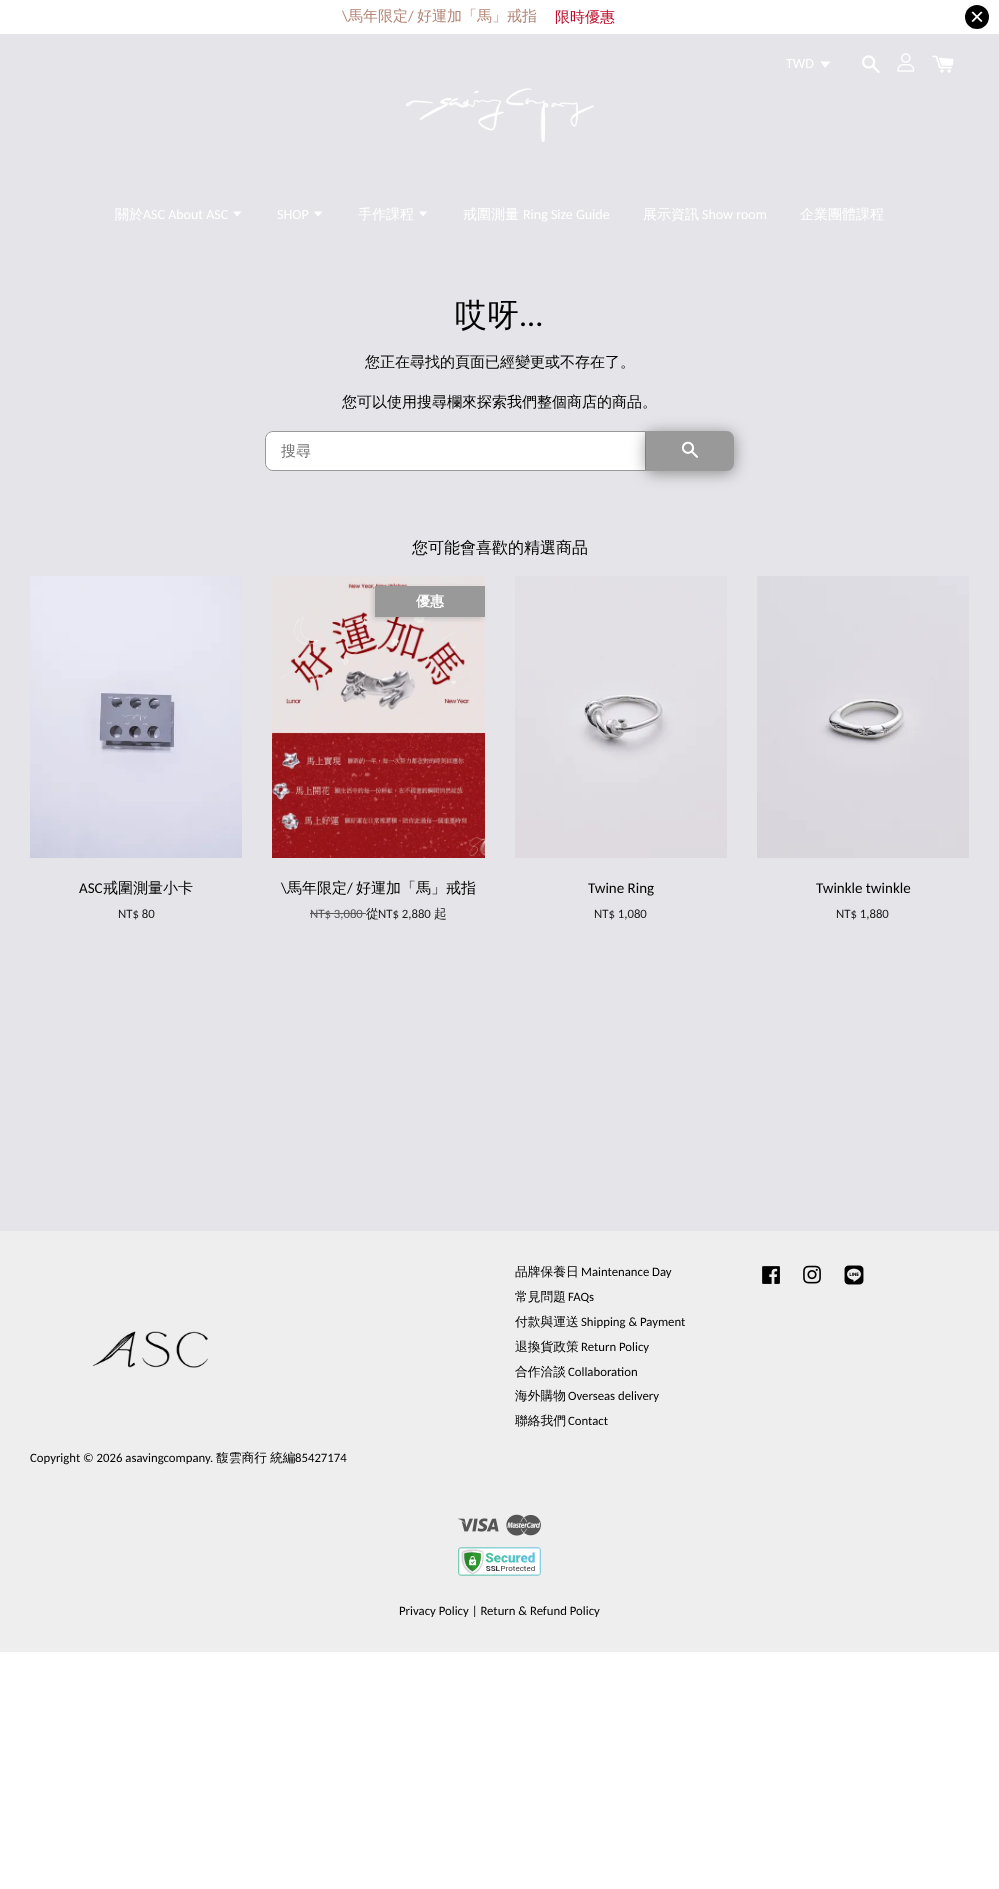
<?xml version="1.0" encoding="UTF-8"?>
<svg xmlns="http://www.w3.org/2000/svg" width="999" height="1889">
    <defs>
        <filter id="blur1" x="-50%" y="-200%" width="200%" height="500%"><feGaussianBlur stdDeviation="7.5"/></filter>
        <filter id="blur2" x="-50%" y="-200%" width="200%" height="500%"><feGaussianBlur stdDeviation="2.5"/></filter>
    </defs>
    <rect width="100%" height="100%" fill="#FFFFFF"/>
    <rect x="0" y="34" width="999" height="1197" fill="#E5E5E9"/>
    <text x="342" y="21" font-family="Carlito" font-size="15" fill="#B28676">\</text>
    <text x="348" y="21" font-family="WenQuanYi Zen Hei" font-size="15" font-weight="500" fill="#B28676">馬年限定</text>
    <text x="408" y="21" font-family="Carlito" font-size="15" fill="#B28676">/</text>
    <text x="417" y="21" font-family="WenQuanYi Zen Hei" font-size="15" font-weight="500" fill="#B28676">好運加「馬」戒指</text>
    <text x="555" y="22" font-family="WenQuanYi Zen Hei" font-size="15" font-weight="500" fill="#BD0A28">限時優惠</text>
    <circle cx="977" cy="17" r="12" fill="#000000"/>
    <path d="M 982 12 C 982.5 12 982.5 13 982 13 L 973.5 21.5 C 973 22 972.5 22 972 21.5 C 971.5 21.5 971.5 20.5 972 20.5 L 980.5 12 C 981 11.5 981.5 11.5 982 12 Z" fill="#FFFFFF"/>
    <path d="M 972 12 C 972.5 11.5 973 11.5 973.5 12 L 982 20.5 C 982.5 20.5 982.5 21.5 982 21.5 C 981.5 22 981 22 980.5 21.5 L 972 13 C 971.5 13 971.5 12 972 12 Z" fill="#FFFFFF"/>
    <text x="786" y="68" font-family="Carlito" font-size="14" fill="#FFFFFF">TWD</text>
    <path d="M 820.5 61.5 L 825 68 L 830.5 61.5 Z" fill="#FFFFFF"/>
    <image x="862" y="55" width="18" height="18" href="img_01.png"/>
    <image x="897" y="53" width="18" height="19" href="img_02.png"/>
    <image x="932" y="55" width="22" height="18" href="img_03.png"/>
    <image x="405" y="88" width="189" height="54" href="img_04.png"/>
    <text x="115" y="219" font-family="WenQuanYi Zen Hei" font-size="14" font-weight="500" fill="#FFFFFF">關於</text>
    <text x="143" y="219" font-family="Carlito" font-size="14" fill="#FFFFFF">ASC About ASC</text>
    <path d="M 233 211.5 L 237 216.5 L 241.5 211.5 Z" fill="#FFFFFF"/>
    <text x="277" y="219" font-family="Carlito" font-size="14" fill="#FFFFFF">SHOP</text>
    <path d="M 314 211.5 L 318 216.5 L 322.5 211.5 Z" fill="#FFFFFF"/>
    <text x="358" y="219" font-family="WenQuanYi Zen Hei" font-size="14" font-weight="500" fill="#FFFFFF">手作課程</text>
    <path d="M 419 211.5 L 423 216.5 L 427.5 211.5 Z" fill="#FFFFFF"/>
    <text x="463" y="219" font-family="WenQuanYi Zen Hei" font-size="14" font-weight="500" fill="#FFFFFF">戒圍測量</text>
    <text x="523" y="219" font-family="Carlito" font-size="14" fill="#FFFFFF">Ring Size Guide</text>
    <text x="643" y="219" font-family="WenQuanYi Zen Hei" font-size="14" font-weight="500" fill="#FFFFFF">展示資訊</text>
    <text x="702" y="219" font-family="Carlito" font-size="14" fill="#FFFFFF">Show room</text>
    <text x="800" y="219" font-family="WenQuanYi Zen Hei" font-size="14" font-weight="500" fill="#FFFFFF">企業團體課程</text>
    <text x="455" y="326" font-family="WenQuanYi Zen Hei" font-size="32" font-weight="500" fill="#000000">哎呀</text>
    <text x="519" y="326" font-family="Carlito" font-size="32" fill="#000000">...</text>
    <text x="365" y="367" font-family="WenQuanYi Zen Hei" font-size="15" font-weight="500" fill="#000000">您正在尋找的頁面已經變更或不存在了。</text>
    <text x="342" y="407" font-family="WenQuanYi Zen Hei" font-size="15" font-weight="500" fill="#000000">您可以使用搜尋欄來探索我們整個商店的商品。</text>
    <path d="M 273 431.5 H 645.5 V 470.5 H 273 C 269 470.5 265.5 467 265.5 463 V 439 C 265.5 435 269 431.5 273 431.5 Z" fill="#FFFFFF" stroke="#999999"/>
    <text x="281" y="456" font-family="WenQuanYi Zen Hei" font-size="15" font-weight="500" fill="#757575">搜尋</text>
    <rect x="646" y="433" width="88" height="40" rx="8" fill="#000000" fill-opacity="0.4" filter="url(#blur1)"/>
    <path d="M 646 431 H 726 C 730.5 431 734 434.5 734 439 V 463 C 734 467.5 730.5 471 726 471 H 646 Z" fill="#999999"/>
    <image x="681" y="441" width="17" height="17" href="img_05.png"/>
    <text x="412" y="553" font-family="WenQuanYi Zen Hei" font-size="16" font-weight="500" fill="#000000">您可能會喜歡的精選商品</text>
    <image x="30" y="576" width="212" height="282" href="img_06.png"/>
    <text x="79" y="893" font-family="Carlito" font-size="15" fill="#000000">ASC</text>
    <text x="103" y="893" font-family="WenQuanYi Zen Hei" font-size="15" font-weight="500" fill="#000000">戒圍測量小卡</text>
    <text x="118" y="918" font-family="Carlito" font-size="12.75" fill="#1A1A1A">NT$ 80</text>
    <image x="272" y="576" width="213" height="282" href="img_07.png"/>
    <rect x="373" y="588" width="110" height="31" fill="#000000" fill-opacity="0.15" filter="url(#blur2)"/>
    <rect x="375" y="586" width="110" height="31" fill="#999999"/>
    <text x="416" y="606" font-family="WenQuanYi Zen Hei" font-size="14" font-weight="700" fill="#FFFFFF">優惠</text>
    <text x="281" y="893" font-family="Carlito" font-size="15" fill="#000000">\</text>
    <text x="287" y="893" font-family="WenQuanYi Zen Hei" font-size="15" font-weight="500" fill="#000000">馬年限定</text>
    <text x="347" y="893" font-family="Carlito" font-size="15" fill="#000000">/</text>
    <text x="356" y="893" font-family="WenQuanYi Zen Hei" font-size="15" font-weight="500" fill="#000000">好運加「馬」戒指</text>
    <text x="310" y="918" font-family="Carlito" font-size="12.75" fill="#575758">NT$ 3,080</text>
    <text x="366" y="918" font-family="WenQuanYi Zen Hei" font-size="12.75" font-weight="500" fill="#1A1A1A">從</text>
    <rect x="310" y="913" width="56" height="1" fill="#575758"/>
    <text x="378" y="918" font-family="Carlito" font-size="12.75" fill="#1A1A1A">NT$ 2,880</text>
    <text x="434" y="918" font-family="WenQuanYi Zen Hei" font-size="12.75" font-weight="500" fill="#1A1A1A">起</text>
    <image x="515" y="576" width="212" height="282" href="img_08.png"/>
    <text x="588" y="893" font-family="Carlito" font-size="15" fill="#000000">Twine Ring</text>
    <text x="594" y="918" font-family="Carlito" font-size="12.75" fill="#1A1A1A">NT$ 1,080</text>
    <image x="757" y="576" width="212" height="282" href="img_09.png"/>
    <text x="816" y="893" font-family="Carlito" font-size="15" fill="#000000">Twinkle twinkle</text>
    <text x="836" y="918" font-family="Carlito" font-size="12.75" fill="#1A1A1A">NT$ 1,880</text>
    <rect x="0" y="1231" width="999" height="421" fill="#EEEEEE"/>
    <text x="515" y="1276" font-family="WenQuanYi Zen Hei" font-size="12.75" font-weight="500" fill="#000000">品牌保養日</text>
    <text x="581" y="1276" font-family="Carlito" font-size="12.75" fill="#000000">Maintenance Day</text>
    <text x="515" y="1301" font-family="WenQuanYi Zen Hei" font-size="12.75" font-weight="500" fill="#000000">常見問題</text>
    <text x="568" y="1301" font-family="Carlito" font-size="12.75" fill="#000000">FAQs</text>
    <text x="515" y="1326" font-family="WenQuanYi Zen Hei" font-size="12.75" font-weight="500" fill="#000000">付款與運送</text>
    <text x="581" y="1326" font-family="Carlito" font-size="12.75" fill="#000000">Shipping &amp; Payment</text>
    <text x="515" y="1351" font-family="WenQuanYi Zen Hei" font-size="12.75" font-weight="500" fill="#000000">退換貨政策</text>
    <text x="581" y="1351" font-family="Carlito" font-size="12.75" fill="#000000">Return Policy</text>
    <text x="515" y="1376" font-family="WenQuanYi Zen Hei" font-size="12.75" font-weight="500" fill="#000000">合作洽談</text>
    <text x="568" y="1376" font-family="Carlito" font-size="12.75" fill="#000000">Collaboration</text>
    <text x="515" y="1400" font-family="WenQuanYi Zen Hei" font-size="12.75" font-weight="500" fill="#000000">海外購物</text>
    <text x="568" y="1400" font-family="Carlito" font-size="12.75" fill="#000000">Overseas delivery</text>
    <text x="515" y="1425" font-family="WenQuanYi Zen Hei" font-size="12.75" font-weight="500" fill="#000000">聯絡我們</text>
    <text x="568" y="1425" font-family="Carlito" font-size="12.75" fill="#000000">Contact</text>
    <image x="762" y="1266" width="18" height="18" href="img_10.png"/>
    <image x="803" y="1265" width="18" height="19" href="img_11.png"/>
    <image x="844" y="1265" width="20" height="20" href="img_12.png"/>
    <image x="92" y="1331" width="116" height="37" href="img_13.png"/>
    <text x="30" y="1462" font-family="Carlito" font-size="12.75" fill="#000000">Copyright © 2026 asavingcompany.</text>
    <text x="216" y="1462" font-family="WenQuanYi Zen Hei" font-size="12.75" font-weight="500" fill="#000000">馥雲商行</text>
    <text x="270" y="1462" font-family="WenQuanYi Zen Hei" font-size="12.75" font-weight="500" fill="#000000">統編</text>
    <text x="295" y="1462" font-family="Carlito" font-size="12.75" fill="#000000">85427174</text>
    <image x="458" y="1518" width="41" height="14" href="img_14.png"/>
    <image x="506" y="1514" width="35" height="22" href="img_15.png"/>
    <image x="458" y="1547" width="83" height="29" href="img_16.png"/>
    <text x="399" y="1615" font-family="Carlito" font-size="12.75" fill="#000000">Privacy Policy | Return &amp; Refund Policy</text>
</svg>
